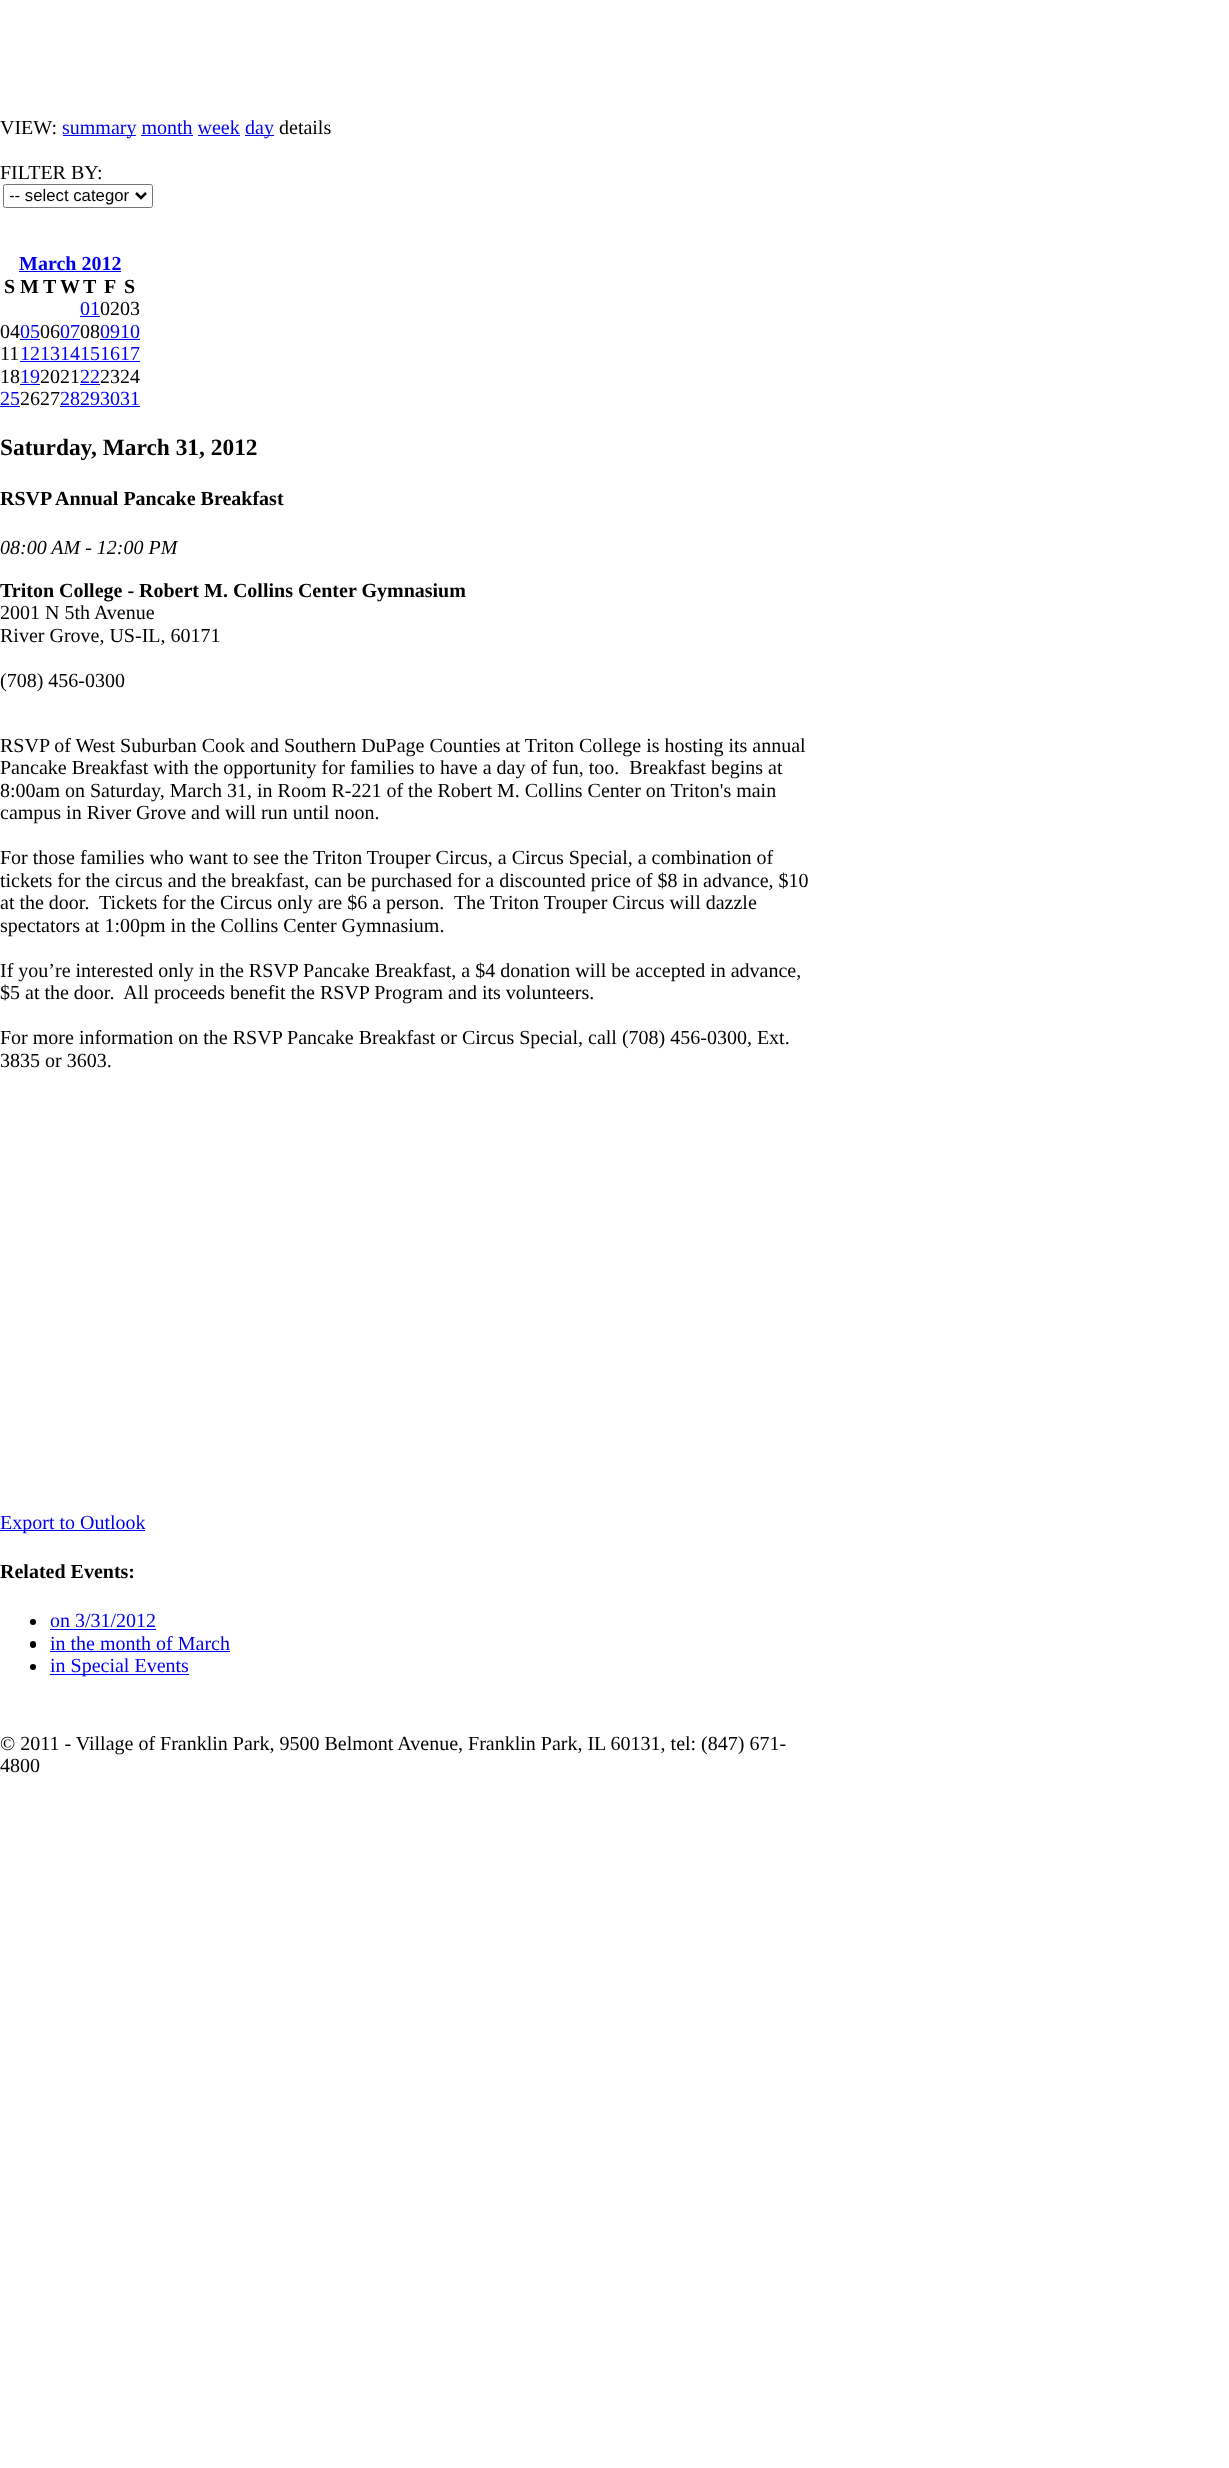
<?xml version="1.0" encoding="UTF-8"?>
<svg xmlns="http://www.w3.org/2000/svg" width="1229" height="2468">
    <rect width="100%" height="100%" fill="#FFFFFF"/>
    <text x="0" y="134" font-family="Liberation Serif" font-size="20" fill="#000000">VIEW:</text>
    <rect x="63" y="135" width="73" height="1" fill="#0000EE"/>
    <text x="62" y="134" font-family="Liberation Serif" font-size="20" fill="#0000EE">summary month week</text>
    <rect x="245" y="135" width="29" height="1" fill="#0000EE"/>
    <text x="245" y="134" font-family="Liberation Serif" font-size="20" fill="#0000EE">day</text>
    <text x="279" y="134" font-family="Liberation Serif" font-size="20" fill="#000000">details</text>
    <rect x="141" y="135" width="52" height="1" fill="#0000EE"/>
    <rect x="198" y="135" width="42" height="1" fill="#0000EE"/>
    <text x="0" y="179" font-family="Liberation Serif" font-size="20" fill="#000000">FILTER BY:</text>
    <rect x="3.5" y="184.5" width="149" height="23" rx="2" fill="none" stroke="#767676"/>
    <path d="M 136 193 L 141 198 L 146 193" fill="none" stroke="#000000" stroke-width="2.5"/>
    <text x="9" y="201" font-family="Liberation Sans" font-size="16.75" fill="#000000">-- select categor</text>
    <text x="19" y="270" font-family="Liberation Serif" font-size="20" font-weight="700" fill="#0000EE">March 2012</text>
    <rect x="19" y="271" width="102" height="1" fill="#0000EE"/>
    <text x="4" y="293" font-family="Liberation Serif" font-size="20" font-weight="700" fill="#000000">S M</text>
    <text x="43" y="293" font-family="Liberation Serif" font-size="20" font-weight="700" fill="#000000">T</text>
    <text x="60" y="293" font-family="Liberation Serif" font-size="20" font-weight="700" fill="#000000">W</text>
    <text x="83" y="293" font-family="Liberation Serif" font-size="20" font-weight="700" fill="#000000">T</text>
    <text x="104" y="293" font-family="Liberation Serif" font-size="20" font-weight="700" fill="#000000">F</text>
    <text x="124" y="293" font-family="Liberation Serif" font-size="20" font-weight="700" fill="#000000">S</text>
    <text x="80" y="315" font-family="Liberation Serif" font-size="20" fill="#0000EE">01</text>
    <rect x="80" y="316" width="20" height="1" fill="#0000EE"/>
    <text x="100" y="315" font-family="Liberation Serif" font-size="20" fill="#000000">0203</text>
    <text x="0" y="338" font-family="Liberation Serif" font-size="20" fill="#000000">04</text>
    <text x="20" y="338" font-family="Liberation Serif" font-size="20" fill="#0000EE">05</text>
    <rect x="20" y="339" width="20" height="1" fill="#0000EE"/>
    <text x="40" y="338" font-family="Liberation Serif" font-size="20" fill="#000000">06</text>
    <text x="60" y="338" font-family="Liberation Serif" font-size="20" fill="#0000EE">07</text>
    <rect x="60" y="339" width="20" height="1" fill="#0000EE"/>
    <text x="80" y="338" font-family="Liberation Serif" font-size="20" fill="#000000">08</text>
    <text x="100" y="338" font-family="Liberation Serif" font-size="20" fill="#0000EE">0910</text>
    <rect x="100" y="339" width="40" height="1" fill="#0000EE"/>
    <text x="0" y="360" font-family="Liberation Serif" font-size="20" fill="#000000">11</text>
    <text x="20" y="360" font-family="Liberation Serif" font-size="20" fill="#0000EE">121314151617</text>
    <rect x="20" y="361" width="120" height="1" fill="#0000EE"/>
    <text x="0" y="383" font-family="Liberation Serif" font-size="20" fill="#000000">18</text>
    <text x="20" y="383" font-family="Liberation Serif" font-size="20" fill="#0000EE">19</text>
    <rect x="20" y="384" width="20" height="1" fill="#0000EE"/>
    <text x="40" y="383" font-family="Liberation Serif" font-size="20" fill="#000000">2021</text>
    <text x="80" y="383" font-family="Liberation Serif" font-size="20" fill="#0000EE">22</text>
    <rect x="80" y="384" width="20" height="1" fill="#0000EE"/>
    <text x="100" y="383" font-family="Liberation Serif" font-size="20" fill="#000000">2324</text>
    <text x="0" y="405" font-family="Liberation Serif" font-size="20" fill="#0000EE">25</text>
    <rect x="0" y="406" width="20" height="1" fill="#0000EE"/>
    <text x="20" y="405" font-family="Liberation Serif" font-size="20" fill="#000000">2627</text>
    <text x="60" y="405" font-family="Liberation Serif" font-size="20" fill="#0000EE">28293031</text>
    <rect x="60" y="406" width="80" height="1" fill="#0000EE"/>
    <text x="0" y="455" font-family="Liberation Serif" font-size="23.4" font-weight="700" fill="#000000">Saturday, March 31, 2012</text>
    <text x="0" y="505" font-family="Liberation Serif" font-size="20" font-weight="700" fill="#000000">RSVP Annual Pancake Breakfast</text>
    <text x="0" y="554" font-family="Liberation Serif" font-size="20" font-style="italic" fill="#000000">08:00 AM - 12:00 PM</text>
    <text x="0" y="597" font-family="Liberation Serif" font-size="20" font-weight="700" fill="#000000">Triton College - Robert M. Collins Center Gymnasium</text>
    <text font-family="Liberation Serif" font-size="20" fill="#000000">
        <tspan x="0" y="619">2001 N 5th Avenue</tspan>
        <tspan x="0" y="642">River Grove, US-IL, 60171</tspan>
    </text>
    <text x="0" y="687" font-family="Liberation Serif" font-size="20" fill="#000000">(708) 456-0300</text>
    <text font-family="Liberation Serif" font-size="20" fill="#000000" xml:space="preserve"><tspan x="0" y="752">RSVP of West Suburban Cook and Southern DuPage Counties at Triton College is hosting its annual</tspan><tspan x="0" y="774">Pancake Breakfast with the opportunity for families to have a day of fun, too.  Breakfast begins at</tspan><tspan x="0" y="797">8:00am on Saturday, March 31, in Room R-221 of the Robert M. Collins Center on Triton's main</tspan><tspan x="0" y="819">campus in River Grove and will run until noon.</tspan></text>
    <text font-family="Liberation Serif" font-size="20" fill="#000000" xml:space="preserve"><tspan x="0" y="864">For those families who want to see the Triton Trouper Circus, a Circus Special, a combination of</tspan><tspan x="0" y="887">tickets for the circus and the breakfast, can be purchased for a discounted price of $8 in advance, $10</tspan><tspan x="0" y="909">at the door.  Tickets for the Circus only are $6 a person.  The Triton Trouper Circus will dazzle</tspan><tspan x="0" y="932">spectators at 1:00pm in the Collins Center Gymnasium.</tspan></text>
    <text font-family="Liberation Serif" font-size="20" fill="#000000" xml:space="preserve"><tspan x="0" y="977">If you’re interested only in the RSVP Pancake Breakfast, a $4 donation will be accepted in advance,</tspan><tspan x="0" y="999">$5 at the door.  All proceeds benefit the RSVP Program and its volunteers.</tspan></text>
    <text font-family="Liberation Serif" font-size="20" fill="#000000">
        <tspan x="0" y="1044">For more information on the RSVP Pancake Breakfast or Circus Special, call (708) 456-0300, Ext.</tspan>
        <tspan x="0" y="1067">3835 or 3603.</tspan>
    </text>
    <rect x="0" y="1530" width="145" height="1" fill="#0000EE"/>
    <text x="0" y="1529" font-family="Liberation Serif" font-size="20" fill="#0000EE">Export to Outlook</text>
    <text x="0" y="1578" font-family="Liberation Serif" font-size="20" font-weight="700" fill="#000000">Related Events:</text>
    <circle cx="33" cy="1622" r="3" fill="#000000"/>
    <text x="50" y="1627" font-family="Liberation Serif" font-size="20" fill="#0000EE">on 3/31/2012</text>
    <rect x="50" y="1629" width="106" height="1" fill="#0000EE"/>
    <rect x="30" y="1641" width="6" height="7" rx="3" fill="#000000"/>
    <text x="50" y="1650" font-family="Liberation Serif" font-size="20" fill="#0000EE">in the month of March</text>
    <rect x="50" y="1651" width="180" height="1" fill="#0000EE"/>
    <circle cx="33" cy="1667" r="3" fill="#000000"/>
    <rect x="50" y="1674" width="139" height="1" fill="#0000EE"/>
    <text x="50" y="1672" font-family="Liberation Serif" font-size="20" fill="#0000EE">in Special Events</text>
    <text font-family="Liberation Serif" font-size="20" fill="#000000">
        <tspan x="0" y="1750">© 2011 - Village of Franklin Park, 9500 Belmont Avenue, Franklin Park, IL 60131, tel: (847) 671-</tspan>
        <tspan x="0" y="1772">4800</tspan>
    </text>
</svg>
